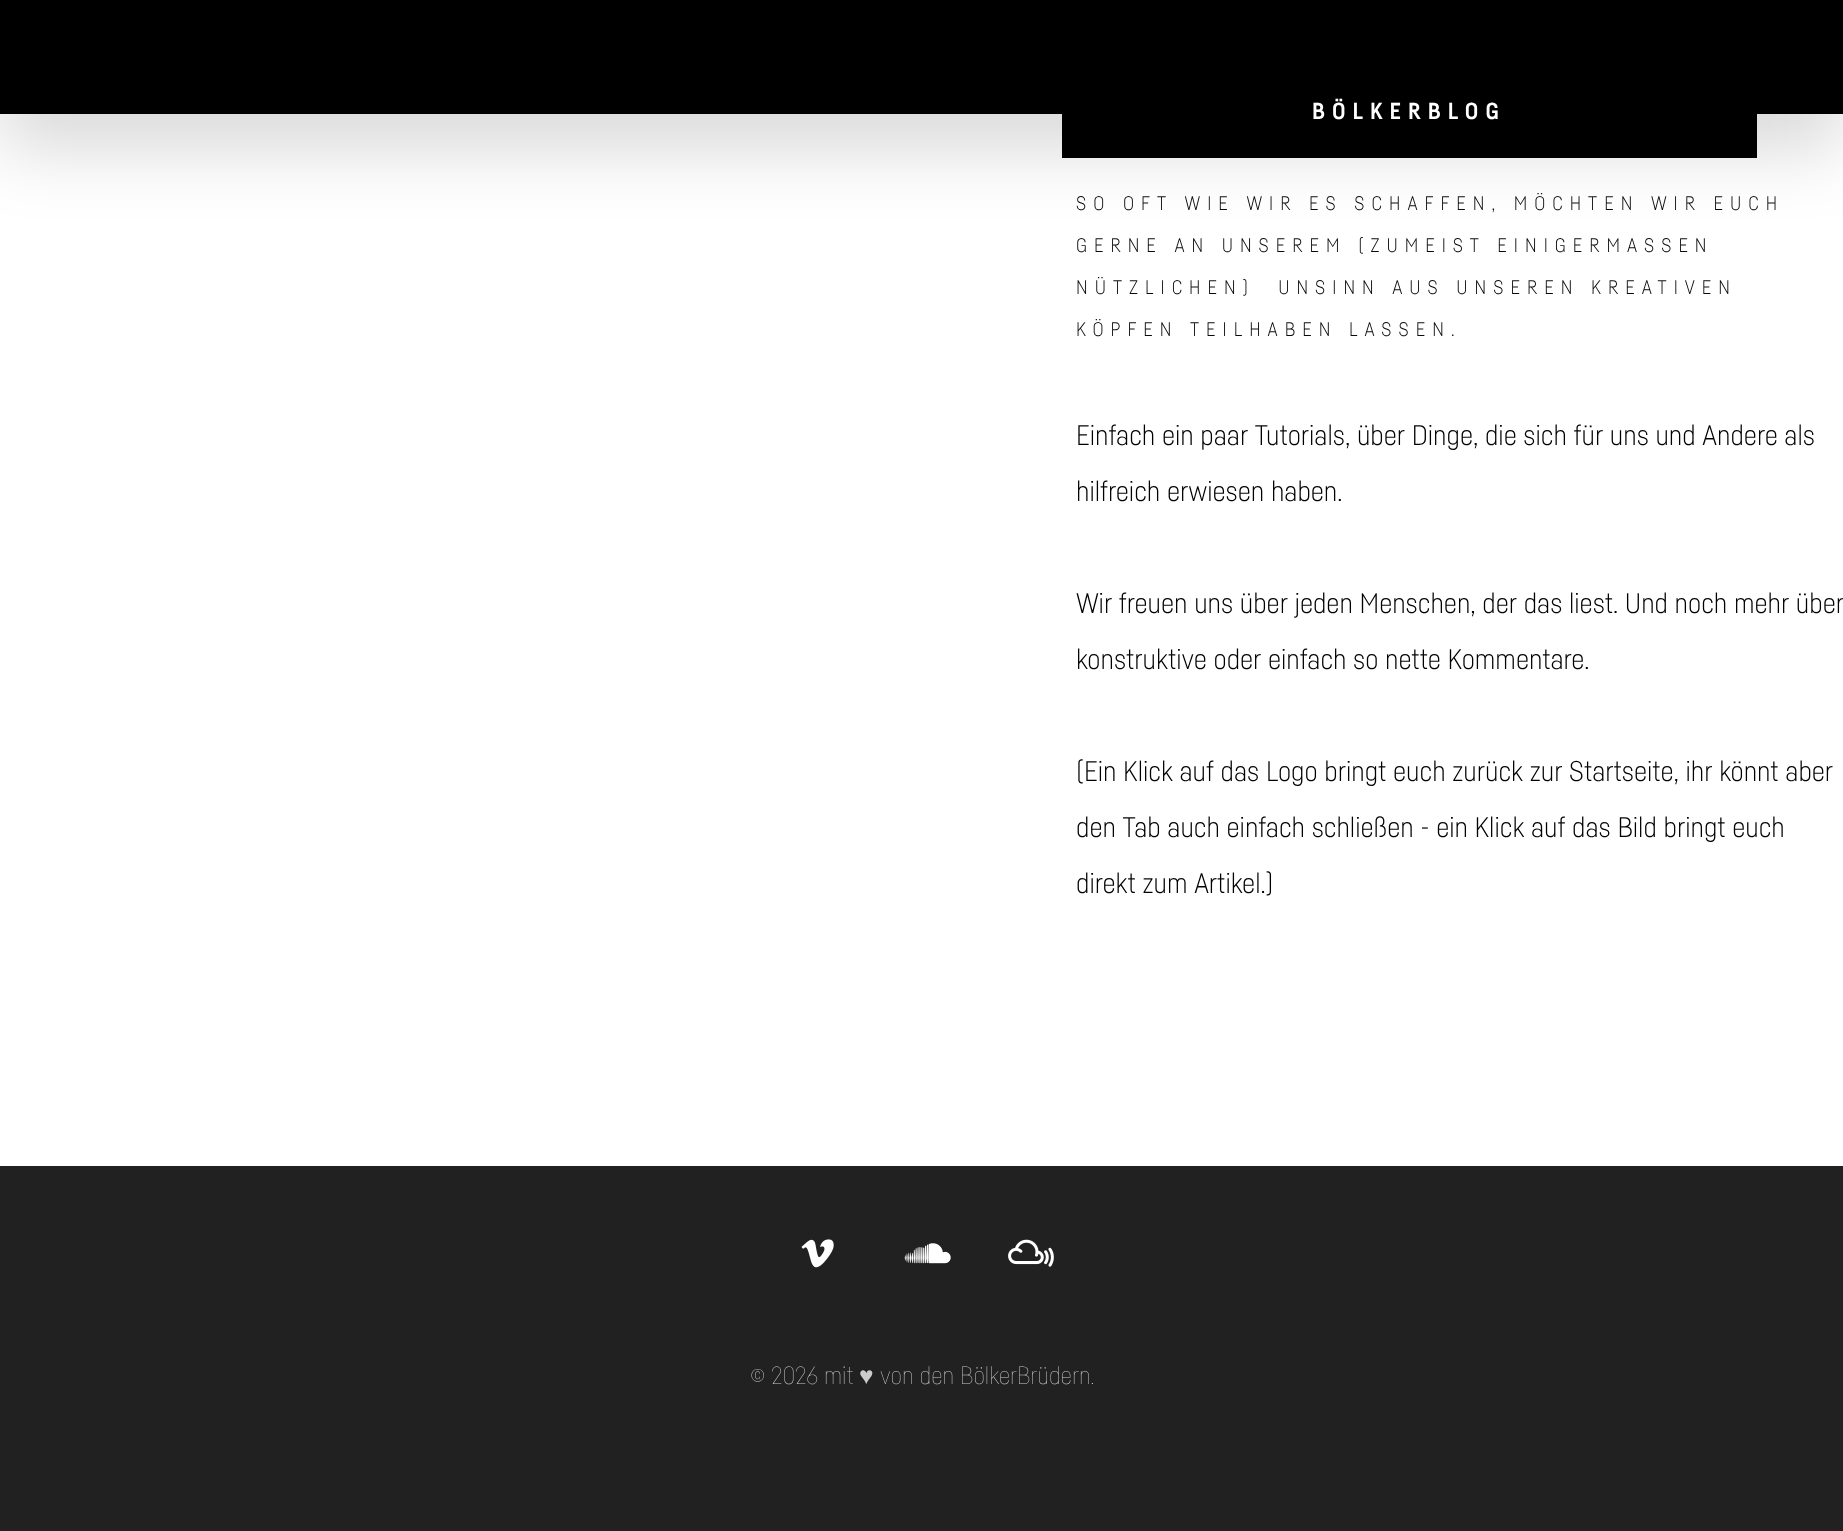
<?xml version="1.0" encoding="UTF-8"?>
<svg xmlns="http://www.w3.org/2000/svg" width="1843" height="1531">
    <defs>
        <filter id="blur1" x="-50%" y="-200%" width="200%" height="500%"><feGaussianBlur stdDeviation="35"/></filter>
    </defs>
    <rect width="100%" height="100%" fill="#FFFFFF"/>
    <rect x="0" y="35" width="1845" height="114" fill="#000000" fill-opacity="0.15" filter="url(#blur1)"/>
    <rect x="0" y="0" width="1843" height="114" fill="#000000"/>
    <rect x="1062" y="114" width="695" height="44" fill="#000000"/>
    <text x="1312" y="119" font-family="'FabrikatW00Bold'" font-size="22.75" font-weight="700" letter-spacing="7" fill="#FFFFFF">BÖLKERBLOG</text>
    <text x="1076" y="210" font-family="'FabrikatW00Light'" font-size="19.25" font-weight="300" letter-spacing="7" fill="#0A0A0A">SO OFT WIE WIR ES SCHAFFEN, MÖCHTEN WIR EUCH</text>
    <text x="1076" y="252" font-family="'FabrikatW00Light'" font-size="19.25" font-weight="300" letter-spacing="7" fill="#0A0A0A">GERNE AN UNSEREM (ZUMEIST EINIGERMASSEN</text>
    <text x="1076" y="294" font-family="'FabrikatW00Light'" font-size="19.25" font-weight="300" letter-spacing="7" fill="#0A0A0A" xml:space="preserve">NÜTZLICHEN)  UNSINN AUS UNSEREN KREATIVEN</text>
    <text x="1076" y="336" font-family="'FabrikatW00Light'" font-size="19.25" font-weight="300" letter-spacing="7" fill="#0A0A0A">KÖPFEN TEILHABEN LASSEN.</text>
    <text x="1076" y="445" font-family="'FabrikatW00Light'" font-size="28" font-weight="300" fill="#000000">Einfach ein paar Tutorials, über Dinge, die sich für uns und Andere als</text>
    <text x="1076" y="501" font-family="'FabrikatW00Light'" font-size="28" font-weight="300" fill="#000000">hilfreich erwiesen haben.</text>
    <text x="1076" y="613" font-family="'FabrikatW00Light'" font-size="28" font-weight="300" fill="#000000">Wir freuen uns über jeden Menschen, der das liest. Und noch mehr über</text>
    <text x="1076" y="669" font-family="'FabrikatW00Light'" font-size="28" font-weight="300" fill="#000000">konstruktive oder einfach so nette Kommentare.</text>
    <text x="1076" y="781" font-family="'FabrikatW00Light'" font-size="28" font-weight="300" fill="#000000">(Ein Klick auf das Logo bringt euch zurück zur Startseite, ihr könnt aber</text>
    <text x="1076" y="837" font-family="'FabrikatW00Light'" font-size="28" font-weight="300" fill="#000000">den Tab auch einfach schließen - ein Klick auf das Bild bringt euch</text>
    <text x="1076" y="893" font-family="'FabrikatW00Light'" font-size="28" font-weight="300" fill="#000000">direkt zum Artikel.)</text>
    <rect x="0" y="1166" width="1843" height="365" fill="#212121"/>
    <image x="801" y="1239" width="33" height="29" href="img_01.png"/>
    <image x="904" y="1243" width="47" height="21" href="img_02.png"/>
    <image x="1008" y="1239" width="46" height="28" href="img_03.png"/>
    <text x="750" y="1384" font-family="'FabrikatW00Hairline'" font-size="24.5" font-weight="100" fill="#CCCCCC">© 2026 mit</text>
    <text x="859" y="1384" font-family="Liberation Serif" font-size="24.5" fill="#CCCCCC">♥</text>
    <text x="880" y="1384" font-family="'FabrikatW00Hairline'" font-size="24.5" font-weight="100" fill="#CCCCCC">von den BölkerBrüdern.</text>
</svg>
